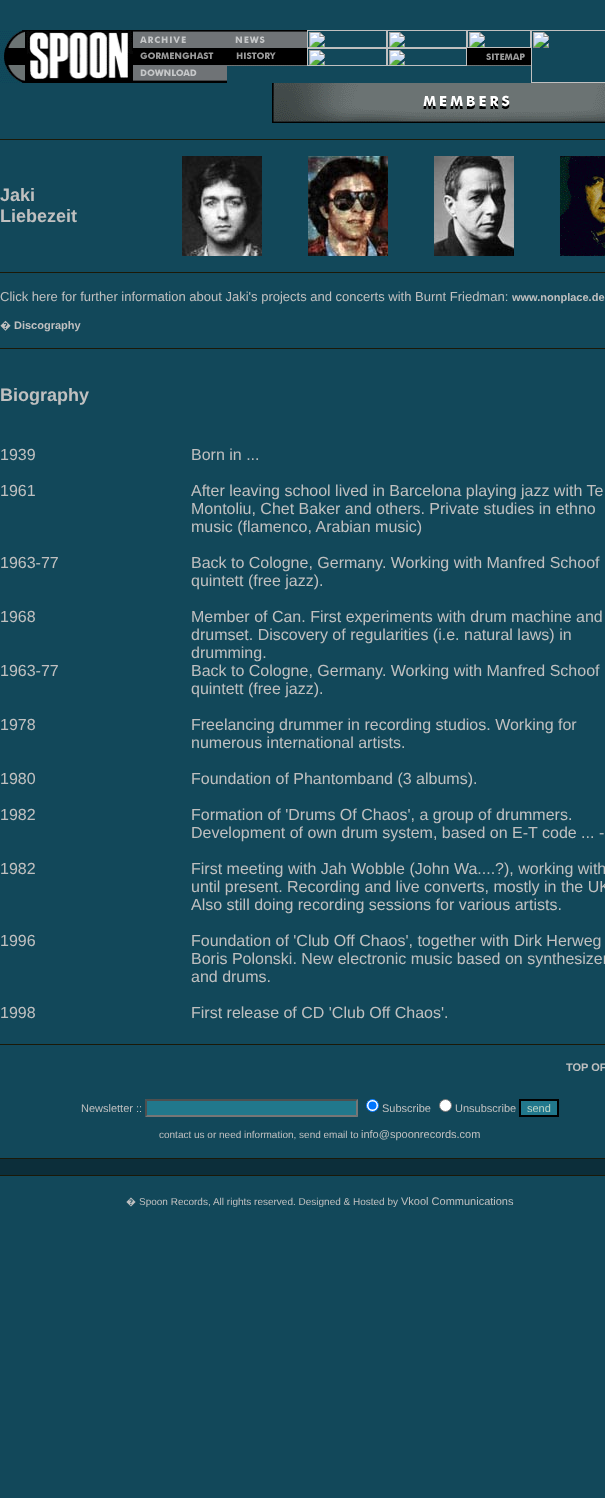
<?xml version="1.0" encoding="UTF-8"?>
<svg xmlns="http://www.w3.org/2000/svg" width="605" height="1498">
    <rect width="100%" height="100%" fill="#12485A"/>
    <image x="0" y="30" width="605" height="53" href="img_01.png"/>
    <image x="272" y="83" width="333" height="40" href="img_02.png"/>
    <rect x="0" y="139" width="605" height="1" fill="#1B1908"/>
    <text font-family="Liberation Sans" font-size="18" font-weight="700" fill="#C0C0C0">
        <tspan x="0" y="201">Jaki</tspan>
        <tspan x="0" y="222">Liebezeit</tspan>
    </text>
    <image x="182" y="156" width="80" height="100" href="img_03.png"/>
    <image x="308" y="156" width="80" height="100" href="img_04.png"/>
    <image x="434" y="156" width="80" height="100" href="img_05.png"/>
    <image x="560" y="156" width="45" height="100" href="img_06.png"/>
    <rect x="0" y="272" width="605" height="1" fill="#1B1908"/>
    <text x="0" y="301" font-family="Liberation Sans" font-size="13" fill="#C0C0C0">Click here for further information about Jaki's projects and concerts with Burnt Friedman:</text>
    <text x="512" y="301" font-family="Liberation Sans" font-size="11" font-weight="700" fill="#C0C0C0">www.nonplace.de</text>
    <text x="0" y="329" font-family="Noto Sans" font-size="11" font-weight="700" fill="#C0C0C0">�</text>
    <text x="14" y="329" font-family="Liberation Sans" font-size="11" font-weight="700" fill="#C0C0C0">Discography</text>
    <rect x="0" y="348" width="605" height="1" fill="#1B1908"/>
    <text x="0" y="401" font-family="Liberation Sans" font-size="18" font-weight="700" fill="#C0C0C0">Biography</text>
    <text x="0" y="460" font-family="Liberation Sans" font-size="16" fill="#C0C0C0">1939</text>
    <text x="191" y="460" font-family="Liberation Sans" font-size="16" fill="#C0C0C0">Born in ...</text>
    <text x="0" y="496" font-family="Liberation Sans" font-size="16" fill="#C0C0C0">1961</text>
    <text font-family="Liberation Sans" font-size="16" fill="#C0C0C0">
        <tspan x="191" y="496">After leaving school lived in Barcelona playing jazz with Te</tspan>
        <tspan x="191" y="514">Montoliu, Chet Baker and others. Private studies in ethno</tspan>
        <tspan x="191" y="532">music (flamenco, Arabian music)</tspan>
    </text>
    <text x="0" y="568" font-family="Liberation Sans" font-size="16" fill="#C0C0C0">1963-77</text>
    <text font-family="Liberation Sans" font-size="16" fill="#C0C0C0">
        <tspan x="191" y="568">Back to Cologne, Germany. Working with Manfred Schoof</tspan>
        <tspan x="191" y="586">quintett (free jazz).</tspan>
    </text>
    <text x="0" y="622" font-family="Liberation Sans" font-size="16" fill="#C0C0C0">1968</text>
    <text font-family="Liberation Sans" font-size="16" fill="#C0C0C0">
        <tspan x="191" y="622">Member of Can. First experiments with drum machine and</tspan>
        <tspan x="191" y="640">drumset. Discovery of regularities (i.e. natural laws) in</tspan>
        <tspan x="191" y="658">drumming.</tspan>
    </text>
    <text x="0" y="676" font-family="Liberation Sans" font-size="16" fill="#C0C0C0">1963-77</text>
    <text font-family="Liberation Sans" font-size="16" fill="#C0C0C0">
        <tspan x="191" y="676">Back to Cologne, Germany. Working with Manfred Schoof</tspan>
        <tspan x="191" y="694">quintett (free jazz).</tspan>
    </text>
    <text x="0" y="730" font-family="Liberation Sans" font-size="16" fill="#C0C0C0">1978</text>
    <text font-family="Liberation Sans" font-size="16" fill="#C0C0C0">
        <tspan x="191" y="730">Freelancing drummer in recording studios. Working for</tspan>
        <tspan x="191" y="748">numerous international artists.</tspan>
    </text>
    <text x="0" y="784" font-family="Liberation Sans" font-size="16" fill="#C0C0C0">1980</text>
    <text x="191" y="784" font-family="Liberation Sans" font-size="16" fill="#C0C0C0">Foundation of Phantomband (3 albums).</text>
    <text x="0" y="820" font-family="Liberation Sans" font-size="16" fill="#C0C0C0">1982</text>
    <text font-family="Liberation Sans" font-size="16" fill="#C0C0C0">
        <tspan x="191" y="820">Formation of 'Drums Of Chaos', a group of drummers.</tspan>
        <tspan x="191" y="838">Development of own drum system, based on E-T code ... -</tspan>
    </text>
    <text x="0" y="874" font-family="Liberation Sans" font-size="16" fill="#C0C0C0">1982</text>
    <text font-family="Liberation Sans" font-size="16" fill="#C0C0C0">
        <tspan x="191" y="874">First meeting with Jah Wobble (John Wa....?), working with</tspan>
        <tspan x="191" y="892">until present. Recording and live converts, mostly in the UK</tspan>
        <tspan x="191" y="910">Also still doing recording sessions for various artists.</tspan>
    </text>
    <text x="0" y="946" font-family="Liberation Sans" font-size="16" fill="#C0C0C0">1996</text>
    <text font-family="Liberation Sans" font-size="16" fill="#C0C0C0">
        <tspan x="191" y="946">Foundation of 'Club Off Chaos', together with Dirk Herweg</tspan>
        <tspan x="191" y="964">Boris Polonski. New electronic music based on synthesizer</tspan>
        <tspan x="191" y="982">and drums.</tspan>
    </text>
    <text x="0" y="1018" font-family="Liberation Sans" font-size="16" fill="#C0C0C0">1998</text>
    <text x="191" y="1018" font-family="Liberation Sans" font-size="16" fill="#C0C0C0">First release of CD 'Club Off Chaos'.</text>
    <rect x="0" y="1044" width="605" height="1" fill="#1B1908"/>
    <text x="566" y="1071" font-family="Liberation Sans" font-size="11" font-weight="700" fill="#C0C0C0">TOP OF</text>
    <text x="81" y="1112" font-family="Liberation Sans" font-size="11" fill="#C0C0C0">Newsletter ::</text>
    <rect x="145" y="1099" width="213" height="18" fill="#21788C"/>
    <path d="M 145 1099 H 358 L 356 1101 H 147 Z" fill="#4F4F4F"/>
    <path d="M 358 1099 V 1117 L 356 1115 V 1101 Z" fill="#767676"/>
    <path d="M 358 1117 H 145 L 147 1115 H 356 Z" fill="#767676"/>
    <path d="M 145 1117 V 1099 L 147 1101 V 1115 Z" fill="#4F4F4F"/>
    <circle cx="372.5" cy="1105.5" r="6" fill="#FFFFFF" stroke="#0075FF"/>
    <circle cx="372.5" cy="1105.5" r="4" fill="#0075FF"/>
    <text x="382" y="1112" font-family="Liberation Sans" font-size="11" fill="#C0C0C0">Subscribe</text>
    <circle cx="445.5" cy="1105.5" r="6" fill="#FFFFFF" stroke="#767676"/>
    <text x="455" y="1112" font-family="Liberation Sans" font-size="11" fill="#C0C0C0">Unsubscribe</text>
    <rect x="520" y="1100" width="38" height="16" fill="#21788C" stroke="#000000" stroke-width="2"/>
    <text x="527" y="1112" font-family="Liberation Sans" font-size="11" fill="#BCD4C7">send</text>
    <text x="159" y="1138" font-family="Liberation Sans" font-size="10" fill="#C0C0C0">contact us or need information, send email to</text>
    <text x="361" y="1138" font-family="Liberation Sans" font-size="11" fill="#C0C0C0">info@spoonrecords.com</text>
    <rect x="0" y="1158" width="605" height="1" fill="#1B1908"/>
    <rect x="0" y="1159" width="605" height="16" fill="#0C2E3A"/>
    <rect x="0" y="1175" width="605" height="1" fill="#1B1908"/>
    <text x="126" y="1205" font-family="Noto Sans" font-size="10" fill="#C0C0C0">�</text>
    <text x="139" y="1205" font-family="Liberation Sans" font-size="10" fill="#C0C0C0">Spoon Records, All rights reserved. Designed &amp; Hosted by</text>
    <text x="401" y="1205" font-family="Liberation Sans" font-size="11" fill="#C0C0C0">Vkool Communications</text>
</svg>
